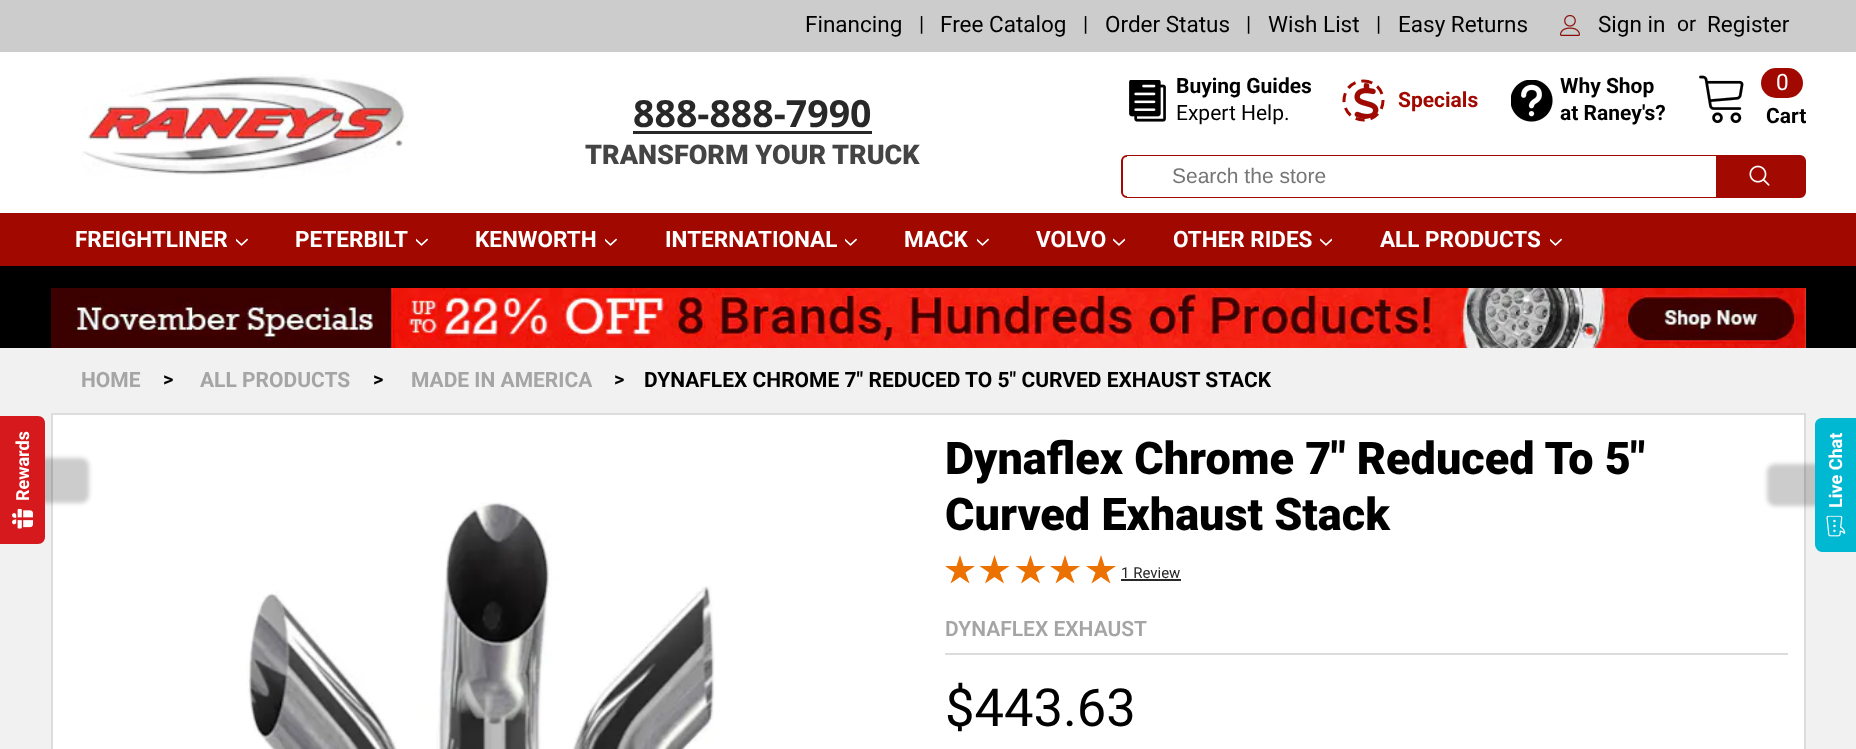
<?xml version="1.0" encoding="UTF-8"?>
<svg xmlns="http://www.w3.org/2000/svg" width="1856" height="749">
    <defs>
        <filter id="blur1" x="-50%" y="-200%" width="200%" height="500%"><feGaussianBlur stdDeviation="2"/></filter>
    </defs>
    <rect width="100%" height="100%" fill="#F1F1F2"/>
    <rect x="0" y="52" width="1856" height="161" fill="#FFFFFF"/>
    <rect x="0" y="0" width="1856" height="52" fill="#CCCCCC"/>
    <text x="805" y="32" font-family="Roboto" font-size="22.5" fill="#000000">Financing</text>
    <text x="919" y="31" font-family="Roboto" font-size="21" fill="#000000">|</text>
    <text x="940" y="32" font-family="Roboto" font-size="22.5" fill="#000000">Free Catalog</text>
    <text x="1083" y="31" font-family="Roboto" font-size="21" fill="#000000">|</text>
    <text x="1105" y="32" font-family="Roboto" font-size="22.5" fill="#000000">Order Status</text>
    <text x="1246" y="31" font-family="Roboto" font-size="21" fill="#000000">|</text>
    <text x="1268" y="32" font-family="Roboto" font-size="22.5" fill="#000000">Wish List</text>
    <text x="1376" y="31" font-family="Roboto" font-size="21" fill="#000000">|</text>
    <text x="1398" y="32" font-family="Roboto" font-size="22.5" fill="#000000">Easy Returns</text>
    <image x="1560" y="15" width="20" height="21" href="img_01.png"/>
    <text x="1598" y="32" font-family="Roboto" font-size="22.5" fill="#000000">Sign in</text>
    <text x="1677" y="31" font-family="Roboto" font-size="21" fill="#000000">or</text>
    <text x="1707" y="32" font-family="Roboto" font-size="22.5" fill="#000000">Register</text>
    <image x="82" y="71" width="326" height="107" href="img_02.png"/>
    <text x="633" y="127" font-family="Open Sans" font-size="37.5" font-weight="700" fill="#282828">888-888-7990</text>
    <rect x="633" y="131" width="239" height="3" fill="#282828"/>
    <text x="585" y="164" font-family="Roboto" font-size="27" font-weight="900" fill="#444444">TRANSFORM YOUR TRUCK</text>
    <image x="1129" y="80" width="37" height="42" href="img_03.png"/>
    <text x="1176" y="93" font-family="Roboto" font-size="21" font-weight="700" fill="#000000">Buying Guides</text>
    <text x="1176" y="120" font-family="Roboto" font-size="21" fill="#000000">Expert Help.</text>
    <path d="M 1363.5 81 C 1374.5 81 1383 89.5 1383 100.5 C 1383 111.5 1374.5 120 1363.5 120 C 1352.5 120 1344 111.5 1344 100.5 C 1344 89.5 1352.5 81 1363.5 81 Z" fill="none" stroke="#A10900" stroke-width="3" stroke-dasharray="9 6"/>
    <image x="1354" y="83" width="25" height="36" href="img_04.png"/>
    <text x="1398" y="107" font-family="Roboto" font-size="21" font-weight="700" fill="#A10900">Specials</text>
    <image x="1511" y="80" width="42" height="42" href="img_05.png"/>
    <text font-family="Roboto" font-size="21" font-weight="700" fill="#000000">
        <tspan x="1560" y="93">Why Shop</tspan>
        <tspan x="1560" y="120">at Raney's?</tspan>
    </text>
    <image x="1699" y="75" width="45" height="48" href="img_06.png"/>
    <rect x="1761" y="68" width="42" height="30" rx="15" fill="#A10900"/>
    <text x="1776" y="90" font-family="Roboto" font-size="22.5" fill="#FFFFFF">0</text>
    <text x="1766" y="123" font-family="Roboto" font-size="21" font-weight="700" fill="#000000">Cart</text>
    <rect x="1122" y="156" width="683" height="41" rx="5" fill="none" stroke="#A10901" stroke-width="2"/>
    <rect x="1127" y="156" width="589" height="41" fill="#FFFFFF"/>
    <text x="1172" y="183" font-family="Liberation Sans" font-size="21" fill="#757575">Search the store</text>
    <path d="M 1716 156 H 1799 C 1802.5 156 1805 158.5 1805 162 V 191 C 1805 194.5 1802.5 197 1799 197 H 1716 Z" fill="#A10901"/>
    <image x="1749" y="165" width="21" height="21" href="img_07.png"/>
    <rect x="0" y="213" width="1856" height="53" fill="#A10900"/>
    <text x="75" y="247" font-family="Roboto" font-size="22.5" font-weight="700" fill="#FFFFFF">FREIGHTLINER</text>
    <image x="236" y="238" width="12" height="8" href="img_08.png"/>
    <text x="295" y="247" font-family="Roboto" font-size="22.5" font-weight="700" fill="#FFFFFF">PETERBILT</text>
    <image x="416" y="238" width="12" height="8" href="img_08.png"/>
    <text x="475" y="247" font-family="Roboto" font-size="22.5" font-weight="700" fill="#FFFFFF">KENWORTH</text>
    <image x="605" y="238" width="12" height="8" href="img_08.png"/>
    <text x="665" y="247" font-family="Roboto" font-size="22.5" font-weight="700" fill="#FFFFFF">INTERNATIONAL</text>
    <image x="845" y="238" width="12" height="8" href="img_08.png"/>
    <text x="904" y="247" font-family="Roboto" font-size="22.5" font-weight="700" fill="#FFFFFF">MACK</text>
    <image x="977" y="238" width="12" height="8" href="img_08.png"/>
    <text x="1036" y="247" font-family="Roboto" font-size="22.5" font-weight="700" fill="#FFFFFF">VOLVO</text>
    <image x="1113" y="238" width="12" height="8" href="img_09.png"/>
    <text x="1173" y="247" font-family="Roboto" font-size="22.5" font-weight="700" fill="#FFFFFF">OTHER RIDES</text>
    <image x="1320" y="238" width="12" height="8" href="img_09.png"/>
    <text x="1380" y="247" font-family="Roboto" font-size="22.5" font-weight="700" fill="#FFFFFF">ALL PRODUCTS</text>
    <image x="1550" y="238" width="12" height="8" href="img_08.png"/>
    <rect x="0" y="266" width="1856" height="82" fill="#000000"/>
    <image x="51" y="288" width="1755" height="60" href="img_10.png"/>
    <rect x="52" y="414" width="1753" height="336" fill="#FFFFFF" stroke="#DCDCDC" stroke-width="2"/>
    <rect x="-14" y="458" width="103" height="45" rx="8" fill="#000000" fill-opacity="0.2" filter="url(#blur1)"/>
    <path d="M 0 544 V 416 H 38 C 42 416 45 419 45 423 V 537 C 45 541 42 544 38 544 Z" fill="#D5191D"/>
    <text x="29" y="501" transform="rotate(-90 29 501)" font-family="Roboto" font-size="18" font-weight="700" fill="#FFFFFF">Rewards</text>
    <image x="12" y="508" width="21" height="21" href="img_11.png"/>
    <text x="81" y="387" font-family="Roboto" font-size="21" font-weight="700" fill="#A5A5A5">HOME</text>
    <text x="163" y="386" font-family="Roboto" font-size="20" font-weight="700" fill="#000000">&gt;</text>
    <text x="200" y="387" font-family="Roboto" font-size="21" font-weight="700" fill="#A5A5A5">ALL PRODUCTS</text>
    <text x="373" y="386" font-family="Roboto" font-size="20" font-weight="700" fill="#000000">&gt;</text>
    <text x="411" y="387" font-family="Roboto" font-size="21" font-weight="700" fill="#A5A5A5">MADE IN AMERICA</text>
    <text x="614" y="386" font-family="Roboto" font-size="20" font-weight="700" fill="#000000">&gt;</text>
    <text x="644" y="387" font-family="Roboto" font-size="21" font-weight="700" fill="#000000">DYNAFLEX CHROME 7" REDUCED TO 5" CURVED EXHAUST STACK</text>
    <image x="246" y="502" width="469" height="247" href="img_12.png"/>
    <text font-family="Roboto" font-size="45" font-weight="900" fill="#000000">
        <tspan x="945" y="474">Dynaflex Chrome 7" Reduced To 5"</tspan>
        <tspan x="945" y="530">Curved Exhaust Stack</tspan>
    </text>
    <path d="M 960 555 L 963.5 566 H 975 L 965.5 572.5 L 969.5 583.5 L 960 577 L 950.5 583.5 L 954.5 572.5 L 945 566 H 956.5 Z" fill="#EB7100"/>
    <path d="M 994.5 555 L 998 566 H 1009.5 L 1000 572.5 L 1004 583.5 L 994.5 577 L 985 583.5 L 989 572.5 L 979.5 566 H 991 Z" fill="#EB7100"/>
    <path d="M 1030.5 555 L 1034 566 H 1045.5 L 1036 572.5 L 1040 583.5 L 1030.5 577 L 1021 583.5 L 1025 572.5 L 1015.5 566 H 1027 Z" fill="#EB7100"/>
    <path d="M 1065 555 L 1068.5 566 H 1080 L 1070.5 572.5 L 1074.5 583.5 L 1065 577 L 1055.5 583.5 L 1059.5 572.5 L 1050 566 H 1061.5 Z" fill="#EB7100"/>
    <path d="M 1101 555 L 1104.5 566 H 1116 L 1106.5 572.5 L 1110.5 583.5 L 1101 577 L 1091.5 583.5 L 1095.5 572.5 L 1086 566 H 1097.5 Z" fill="#EB7100"/>
    <text x="1121" y="578" font-family="Roboto" font-size="15" fill="#282828">1 Review</text>
    <rect x="1121" y="579" width="60" height="2" fill="#282828"/>
    <rect x="945" y="653" width="843" height="2" fill="#DCDCDC"/>
    <text x="945" y="636" font-family="Roboto" font-size="21" font-weight="600" fill="#A5A5A5">DYNAFLEX EXHAUST</text>
    <text x="945" y="726" font-family="Roboto" font-size="52.5" fill="#000000">$443.63</text>
    <rect x="1767" y="464" width="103" height="42" rx="8" fill="#000000" fill-opacity="0.2" filter="url(#blur1)"/>
    <path d="M 1815 544 V 425 C 1815 421 1818 418 1822 418 H 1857 V 552 H 1822 C 1818 552 1815 548 1815 544 Z" fill="#00B8D2"/>
    <text x="1842" y="508" transform="rotate(-90 1842 508)" font-family="Roboto" font-size="18" font-weight="700" fill="#FFFFFF">Live Chat</text>
    <image x="1826" y="515" width="20" height="22" href="img_13.png"/>
</svg>
